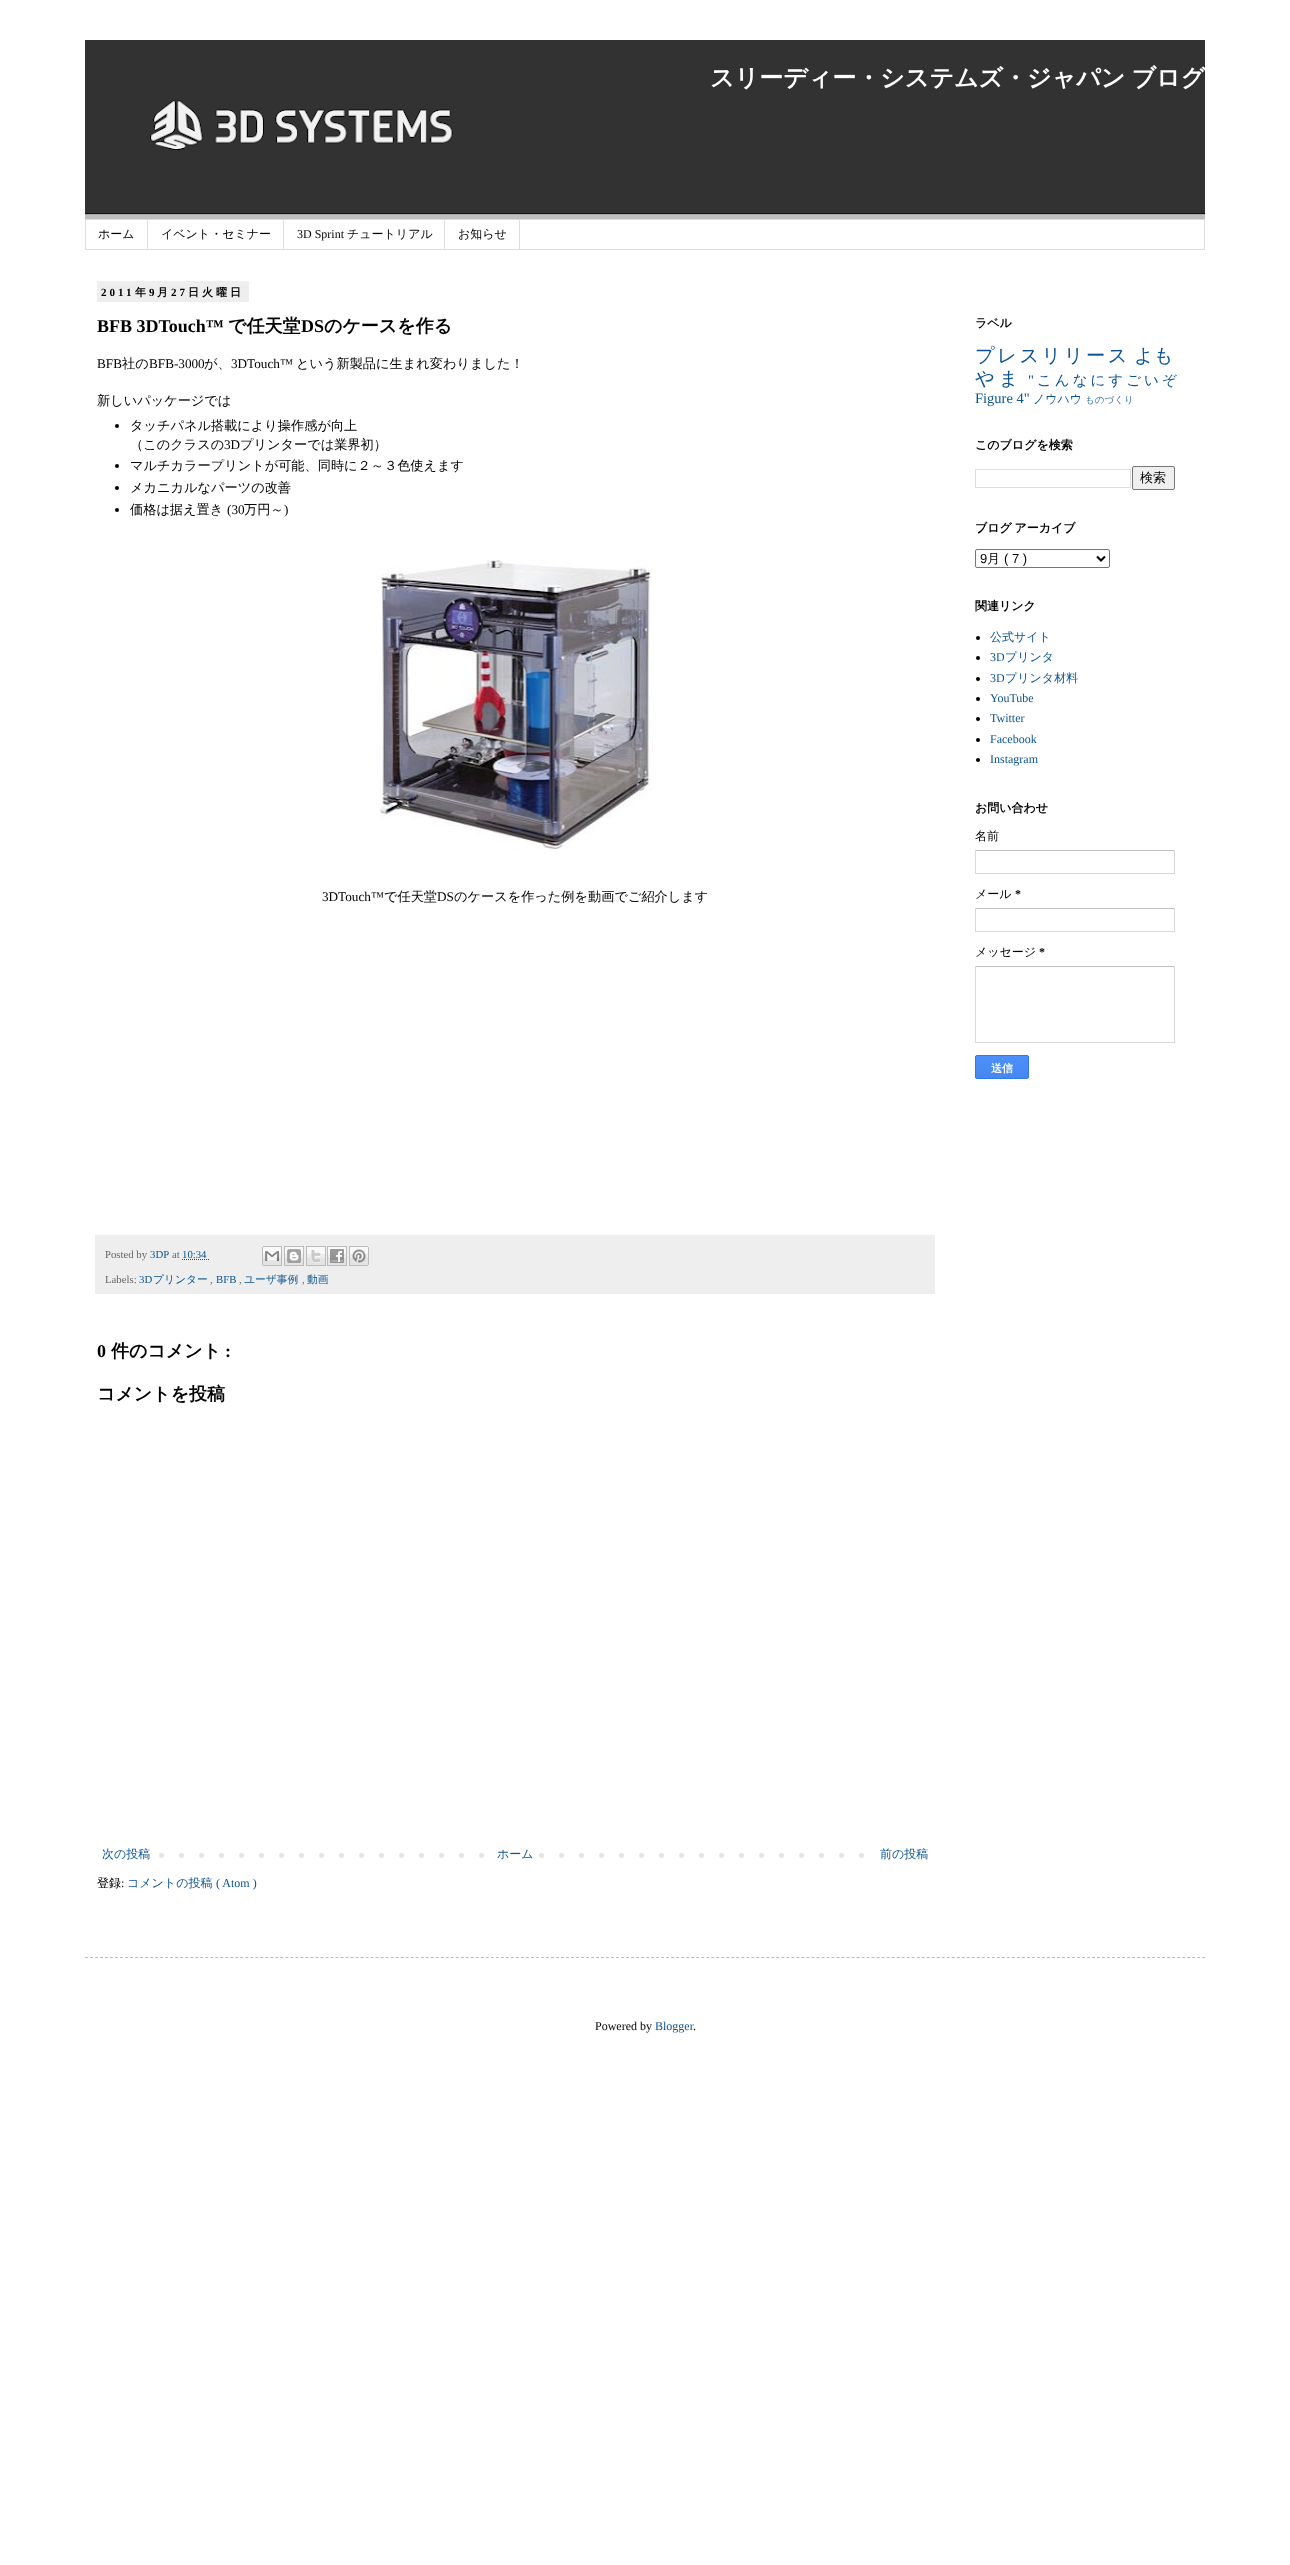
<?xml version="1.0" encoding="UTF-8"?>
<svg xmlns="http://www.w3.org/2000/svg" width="1290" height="2565">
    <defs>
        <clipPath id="clip1"><rect x="975" y="1055" width="54" height="24" rx="2"/></clipPath>
        <linearGradient id="g1" gradientUnits="userSpaceOnUse" x1="1002" y1="1056" x2="1002" y2="1078"><stop offset="0" stop-color="#4D90FE"/><stop offset="1" stop-color="#4787ED"/></linearGradient>
    </defs>
    <rect width="100%" height="100%" fill="#FFFFFF"/>
    <image x="85" y="40" width="1120" height="179" href="img_01.png"/>
    <text x="710" y="86" word-spacing="-1" font-family="WenQuanYi Zen Hei" font-size="24" font-weight="700" fill="#FFFFFF">スリーディー・システムズ・ジャパン ブログ</text>
    <rect x="85.5" y="219.5" width="1119" height="30" fill="none" stroke="#DDDDDD"/>
    <rect x="147" y="220" width="1" height="29" fill="#DDDDDD"/>
    <text x="98" y="238" font-family="WenQuanYi Zen Hei" font-size="12" font-weight="500" fill="#000000">ホーム</text>
    <rect x="283" y="220" width="1" height="29" fill="#DDDDDD"/>
    <text x="161" y="238" font-family="WenQuanYi Zen Hei" font-size="12" font-weight="500" fill="#000000">イベント・セミナー</text>
    <rect x="444" y="220" width="1" height="29" fill="#DDDDDD"/>
    <text x="297" y="238" font-family="Liberation Serif" font-size="12" fill="#000000">3D Sprint</text>
    <text x="347" y="238" font-family="WenQuanYi Zen Hei" font-size="12" font-weight="500" fill="#000000">チュートリアル</text>
    <rect x="519" y="220" width="1" height="29" fill="#DDDDDD"/>
    <text x="458" y="238" font-family="WenQuanYi Zen Hei" font-size="12" font-weight="500" fill="#000000">お知らせ</text>
    <rect x="97" y="281" width="152" height="21" fill="#EEEEEE"/>
    <text x="101" y="296" font-family="Liberation Serif" font-size="11" font-weight="700" letter-spacing="3" fill="#000000">2011</text>
    <text x="135" y="296" font-family="WenQuanYi Zen Hei" font-size="11" font-weight="700" letter-spacing="3" fill="#000000">年</text>
    <text x="149" y="296" font-family="Liberation Serif" font-size="11" font-weight="700" letter-spacing="3" fill="#000000">9</text>
    <text x="157" y="296" font-family="WenQuanYi Zen Hei" font-size="11" font-weight="700" letter-spacing="3" fill="#000000">月</text>
    <text x="171" y="296" font-family="Liberation Serif" font-size="11" font-weight="700" letter-spacing="3" fill="#000000">27</text>
    <text x="188" y="296" font-family="WenQuanYi Zen Hei" font-size="11" font-weight="700" letter-spacing="3" fill="#000000">日火曜日</text>
    <text x="97" y="332" font-family="Liberation Serif" font-size="18" font-weight="700" fill="#000000">BFB 3DTouch™</text>
    <text x="228" y="332" font-family="WenQuanYi Zen Hei" font-size="18" font-weight="700" fill="#000000">で任天堂</text>
    <text x="301" y="332" font-family="Liberation Serif" font-size="18" font-weight="700" fill="#000000">DS</text>
    <text x="324" y="332" font-family="WenQuanYi Zen Hei" font-size="18" font-weight="700" fill="#000000">のケースを作る</text>
    <text x="97" y="368" font-family="Liberation Serif" font-size="13.2" fill="#000000">BFB</text>
    <text x="122" y="368" font-family="WenQuanYi Zen Hei" font-size="13.2" font-weight="500" fill="#000000">社の</text>
    <text x="149" y="368" font-family="Liberation Serif" font-size="13.2" fill="#000000">BFB-3000</text>
    <text x="204" y="368" font-family="WenQuanYi Zen Hei" font-size="13.2" font-weight="500" fill="#000000">が、</text>
    <text x="231" y="368" font-family="Liberation Serif" font-size="13.2" fill="#000000">3DTouch™</text>
    <text x="296" y="368" font-family="WenQuanYi Zen Hei" font-size="13.2" font-weight="500" fill="#000000">という新製品に生まれ変わりました！</text>
    <text x="97" y="405" font-family="WenQuanYi Zen Hei" font-size="13.2" font-weight="500" fill="#000000">新しいパッケージでは</text>
    <circle cx="117" cy="426" r="2" fill="#000000"/>
    <text font-family="WenQuanYi Zen Hei" font-size="13.2" font-weight="500" fill="#000000">
        <tspan x="130" y="430">タッチパネル搭載により操作感が向上</tspan>
        <tspan x="130" y="449">（このクラスの</tspan>
    </text>
    <text x="224" y="449" font-family="Liberation Serif" font-size="13.2" fill="#000000">3D</text>
    <text x="240" y="449" font-family="WenQuanYi Zen Hei" font-size="13.2" font-weight="500" fill="#000000">プリンターでは業界初）</text>
    <circle cx="117" cy="466" r="2" fill="#000000"/>
    <text x="130" y="470" font-family="WenQuanYi Zen Hei" font-size="13.2" font-weight="500" fill="#000000">マルチカラープリントが可能、同時に２～３色使えます</text>
    <circle cx="117" cy="488" r="2" fill="#000000"/>
    <text x="130" y="492" font-family="WenQuanYi Zen Hei" font-size="13.2" font-weight="500" fill="#000000">メカニカルなパーツの改善</text>
    <circle cx="117" cy="510" r="2" fill="#000000"/>
    <text x="130" y="514" font-family="WenQuanYi Zen Hei" font-size="13.2" font-weight="500" fill="#000000">価格は据え置き</text>
    <text x="227" y="514" font-family="Liberation Serif" font-size="13.2" fill="#000000">(30</text>
    <text x="244" y="514" font-family="WenQuanYi Zen Hei" font-size="13.2" font-weight="500" fill="#000000">万円～</text>
    <text x="284" y="514" font-family="Liberation Serif" font-size="13.2" fill="#000000">)</text>
    <image x="378" y="560" width="275" height="290" href="img_02.png"/>
    <text x="322" y="901" font-family="Liberation Serif" font-size="13.2" fill="#000000">3DTouch™</text>
    <text x="384" y="901" font-family="WenQuanYi Zen Hei" font-size="13.2" font-weight="500" fill="#000000">で任天堂</text>
    <text x="437" y="901" font-family="Liberation Serif" font-size="13.2" fill="#000000">DS</text>
    <text x="454" y="901" font-family="WenQuanYi Zen Hei" font-size="13.2" font-weight="500" fill="#000000">のケースを作った例を動画でご紹介します</text>
    <rect x="95" y="1235" width="840" height="59" fill="#EEEEEE"/>
    <text x="105" y="1258" font-family="Liberation Serif" font-size="10.75" fill="#666666">Posted by</text>
    <text x="150" y="1258" font-family="Liberation Serif" font-size="10.75" fill="#0B5394">3DP</text>
    <text x="172" y="1258" font-family="Liberation Serif" font-size="10.75" fill="#666666">at</text>
    <text x="182" y="1258" font-family="Liberation Serif" font-size="10.75" fill="#0B5394">10:34</text>
    <path d="M 182 1259.5 H 209.5" fill="none" stroke="#0B5394" stroke-dasharray="1 1"/>
    <image x="262" y="1246" width="20" height="20" href="img_03.png"/>
    <image x="284" y="1246" width="20" height="20" href="img_04.png"/>
    <image x="306" y="1246" width="20" height="20" href="img_05.png"/>
    <image x="327" y="1246" width="20" height="20" href="img_06.png"/>
    <image x="349" y="1246" width="20" height="20" href="img_07.png"/>
    <text x="105" y="1283" font-family="Liberation Serif" font-size="10.75" fill="#666666">Labels:</text>
    <text x="139" y="1283" font-family="Liberation Serif" font-size="10.75" fill="#0B5394">3D</text>
    <text x="153" y="1283" font-family="WenQuanYi Zen Hei" font-size="10.75" font-weight="500" fill="#0B5394">プリンター</text>
    <text x="210" y="1283" font-family="Liberation Serif" font-size="10.75" fill="#666666">,</text>
    <text x="216" y="1283" font-family="Liberation Serif" font-size="10.75" fill="#0B5394">BFB</text>
    <text x="239" y="1283" font-family="Liberation Serif" font-size="10.75" fill="#666666">,</text>
    <text x="244" y="1283" font-family="WenQuanYi Zen Hei" font-size="10.75" font-weight="500" fill="#0B5394">ユーザ事例</text>
    <text x="302" y="1283" font-family="Liberation Serif" font-size="10.75" fill="#666666">,</text>
    <text x="307" y="1283" font-family="WenQuanYi Zen Hei" font-size="10.75" font-weight="500" fill="#0B5394">動画</text>
    <text x="97" y="1357" font-family="Liberation Serif" font-size="18" font-weight="700" fill="#000000">0</text>
    <text x="111" y="1357" font-family="WenQuanYi Zen Hei" font-size="18" font-weight="700" fill="#000000">件のコメント</text>
    <text x="225" y="1357" font-family="Liberation Serif" font-size="18" font-weight="700" fill="#000000">:</text>
    <text x="97" y="1400" font-family="WenQuanYi Zen Hei" font-size="18" font-weight="700" fill="#000000">コメントを投稿</text>
    <image x="159" y="1853" width="705" height="5" href="img_08.png"/>
    <text x="102" y="1858" font-family="WenQuanYi Zen Hei" font-size="12" font-weight="500" fill="#0B5394">次の投稿</text>
    <rect x="499" y="1853" width="26" height="5" fill="#FFFFFF"/>
    <text x="497" y="1858" font-family="WenQuanYi Zen Hei" font-size="12" font-weight="500" fill="#0B5394">ホーム</text>
    <text x="880" y="1858" font-family="WenQuanYi Zen Hei" font-size="12" font-weight="500" fill="#0B5394">前の投稿</text>
    <text x="97" y="1887" font-family="WenQuanYi Zen Hei" font-size="12" font-weight="500" fill="#000000">登録</text>
    <text x="121" y="1887" font-family="Liberation Serif" font-size="12" fill="#000000">:</text>
    <text x="127" y="1887" font-family="WenQuanYi Zen Hei" font-size="12" font-weight="500" fill="#0B5394">コメントの投稿</text>
    <text x="216" y="1887" font-family="Liberation Serif" font-size="12" fill="#0B5394">( Atom )</text>
    <text x="975" y="327" font-family="WenQuanYi Zen Hei" font-size="12" font-weight="700" fill="#000000">ラベル</text>
    <text x="975" y="362" font-family="WenQuanYi Zen Hei" font-size="19.25" font-weight="500" letter-spacing="2.5" fill="#0B5394">プレスリリース</text>
    <text x="1134" y="362" font-family="WenQuanYi Zen Hei" font-size="19.25" font-weight="500" fill="#0B5394">よも</text>
    <text x="975" y="385" font-family="WenQuanYi Zen Hei" font-size="19.25" font-weight="500" letter-spacing="4" fill="#0B5394">やま</text>
    <text x="1028" y="385" font-family="Liberation Serif" font-size="14.5" letter-spacing="3" fill="#0B5394">"</text>
    <text x="1037" y="385" font-family="WenQuanYi Zen Hei" font-size="14.5" font-weight="500" letter-spacing="3" fill="#0B5394">こんなにすごいぞ</text>
    <text x="975" y="403" font-family="Liberation Serif" font-size="14.5" fill="#0B5394">Figure 4"</text>
    <text x="1033" y="403" font-family="WenQuanYi Zen Hei" font-size="12" font-weight="500" fill="#0B5394">ノウハウ</text>
    <text x="1085" y="403" font-family="WenQuanYi Zen Hei" font-size="9.5" font-weight="500" fill="#3C75A9">ものづくり</text>
    <text x="975" y="449" font-family="WenQuanYi Zen Hei" font-size="12" font-weight="700" fill="#000000">このブログを検索</text>
    <rect x="975.5" y="469.5" width="155" height="18" fill="none" stroke="#DDDDDD"/>
    <rect x="1132.5" y="466.5" width="42" height="23" rx="1.5" fill="#EFEFEF" stroke="#767676"/>
    <text x="1140" y="482" font-family="WenQuanYi Zen Hei" font-size="13" font-weight="500" fill="#000000">検索</text>
    <text x="975" y="532" word-spacing="-1" font-family="WenQuanYi Zen Hei" font-size="12" font-weight="700" fill="#000000">ブログ アーカイブ</text>
    <rect x="975.5" y="549.5" width="134" height="18" rx="1.5" fill="none" stroke="#767676"/>
    <path d="M 1097 556.5 L 1101 560.5 L 1105 556.5" fill="none" stroke="#000000" stroke-width="2"/>
    <text x="980" y="563" font-family="Liberation Sans" font-size="13" fill="#000000">9</text>
    <text x="987" y="563" font-family="WenQuanYi Zen Hei" font-size="13" font-weight="500" fill="#000000">月</text>
    <text x="1004" y="563" font-family="Liberation Sans" font-size="13" fill="#000000">( 7 )</text>
    <text x="975" y="610" font-family="WenQuanYi Zen Hei" font-size="12" font-weight="700" fill="#000000">関連リンク</text>
    <circle cx="978" cy="638" r="2" fill="#000000"/>
    <text x="990" y="641" font-family="WenQuanYi Zen Hei" font-size="12" font-weight="500" fill="#0B5394">公式サイト</text>
    <circle cx="978" cy="658" r="2" fill="#000000"/>
    <text x="990" y="661" font-family="Liberation Serif" font-size="12" fill="#0B5394">3D</text>
    <text x="1005" y="661" font-family="WenQuanYi Zen Hei" font-size="12" font-weight="500" fill="#0B5394">プリンタ</text>
    <circle cx="978" cy="679" r="2" fill="#000000"/>
    <text x="990" y="682" font-family="Liberation Serif" font-size="12" fill="#0B5394">3D</text>
    <text x="1005" y="682" font-family="WenQuanYi Zen Hei" font-size="12" font-weight="500" fill="#0B5394">プリンタ材料</text>
    <circle cx="978" cy="699" r="2" fill="#000000"/>
    <text x="990" y="702" font-family="Liberation Serif" font-size="12" fill="#0B5394">YouTube</text>
    <circle cx="978" cy="719" r="2" fill="#000000"/>
    <text x="990" y="722" font-family="Liberation Serif" font-size="12" fill="#0B5394">Twitter</text>
    <circle cx="978" cy="740" r="2" fill="#000000"/>
    <text x="990" y="743" font-family="Liberation Serif" font-size="12" fill="#0B5394">Facebook</text>
    <circle cx="978" cy="760" r="2" fill="#000000"/>
    <text x="990" y="763" font-family="Liberation Serif" font-size="12" fill="#0B5394">Instagram</text>
    <text x="975" y="812" font-family="WenQuanYi Zen Hei" font-size="12" font-weight="700" fill="#000000">お問い合わせ</text>
    <text x="975" y="840" font-family="WenQuanYi Zen Hei" font-size="12" font-weight="500" fill="#000000">名前</text>
    <rect x="975" y="850" width="200" height="1" fill="#C0C0C0"/>
    <rect x="1174" y="850" width="1" height="24" fill="#D9D9D9"/>
    <rect x="975" y="873" width="200" height="1" fill="#D9D9D9"/>
    <rect x="975" y="850" width="1" height="24" fill="#D9D9D9"/>
    <text x="975" y="898" font-family="WenQuanYi Zen Hei" font-size="12" font-weight="500" fill="#000000">メール</text>
    <text x="1015" y="898" font-family="Liberation Serif" font-size="12" font-weight="700" fill="#000000">*</text>
    <rect x="975" y="908" width="200" height="1" fill="#C0C0C0"/>
    <rect x="1174" y="908" width="1" height="24" fill="#D9D9D9"/>
    <rect x="975" y="931" width="200" height="1" fill="#D9D9D9"/>
    <rect x="975" y="908" width="1" height="24" fill="#D9D9D9"/>
    <text x="975" y="956" font-family="WenQuanYi Zen Hei" font-size="12" font-weight="500" fill="#000000">メッセージ</text>
    <text x="1039" y="956" font-family="Liberation Serif" font-size="12" font-weight="700" fill="#000000">*</text>
    <rect x="975" y="966" width="200" height="1" fill="#C0C0C0"/>
    <rect x="1174" y="966" width="1" height="77" fill="#D9D9D9"/>
    <rect x="975" y="1042" width="200" height="1" fill="#D9D9D9"/>
    <rect x="975" y="966" width="1" height="77" fill="#D9D9D9"/>
    <g clip-path="url(#clip1)">
        <rect x="975" y="1056" width="54" height="22" fill="url(#g1)"/>
    </g>
    <rect x="975.5" y="1055.5" width="53" height="23" rx="1.5" fill="none" stroke="#3079ED"/>
    <text x="991" y="1072" font-family="WenQuanYi Zen Hei" font-size="11" font-weight="700" fill="#FFFFFF">送信</text>
    <path d="M 85 1957.5 H 1205" fill="none" stroke="#BBBBBB" stroke-dasharray="3 2.01"/>
    <text x="595" y="2030" font-family="Liberation Serif" font-size="12" fill="#000000">Powered by</text>
    <text x="655" y="2030" font-family="Liberation Serif" font-size="12" fill="#0B5394">Blogger</text>
    <text x="693" y="2030" font-family="Liberation Serif" font-size="12" fill="#000000">.</text>
</svg>
